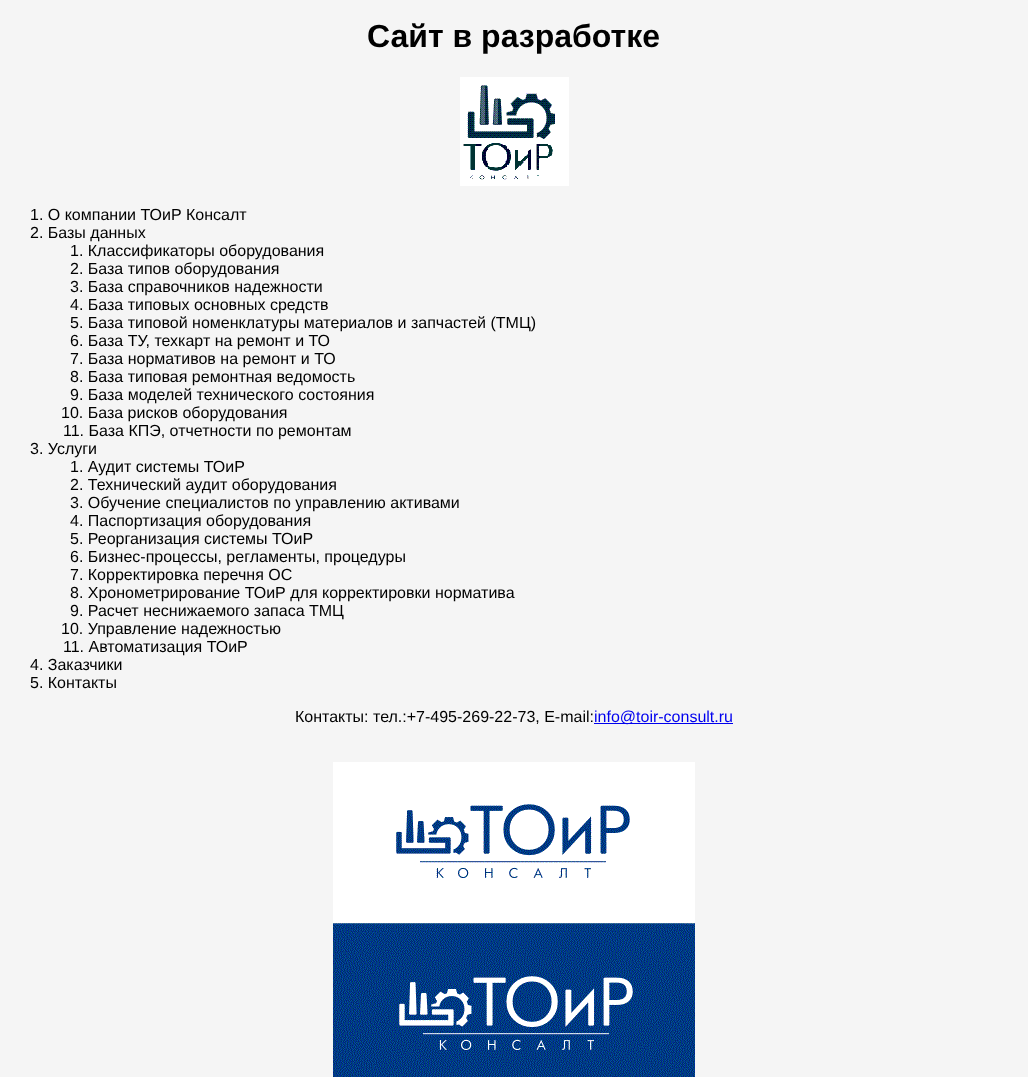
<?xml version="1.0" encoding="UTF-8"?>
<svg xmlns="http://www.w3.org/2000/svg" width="1028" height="1077">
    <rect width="100%" height="100%" fill="#F5F5F5"/>
    <text x="367" y="47" font-family="Liberation Sans" font-size="32" font-weight="700" fill="#000000">Сайт в разработке</text>
    <image x="460" y="77" width="109" height="109" href="img_01.png"/>
    <text font-family="Liberation Sans" font-size="16" fill="#000000">
        <tspan x="30" y="220">1. О компании ТОиР Консалт</tspan>
        <tspan x="30" y="238">2. Базы данных</tspan>
    </text>
    <text font-family="Liberation Sans" font-size="16" fill="#000000">
        <tspan x="70" y="256">1. Классификаторы оборудования</tspan>
        <tspan x="70" y="274">2. База типов оборудования</tspan>
        <tspan x="70" y="292">3. База справочников надежности</tspan>
        <tspan x="70" y="310">4. База типовых основных средств</tspan>
        <tspan x="70" y="328">5. База типовой номенклатуры материалов и запчастей (ТМЦ)</tspan>
        <tspan x="70" y="346">6. База ТУ, техкарт на ремонт и ТО</tspan>
        <tspan x="70" y="364">7. База нормативов на ремонт и ТО</tspan>
        <tspan x="70" y="382">8. База типовая ремонтная ведомость</tspan>
        <tspan x="70" y="400">9. База моделей технического состояния</tspan>
    </text>
    <text x="61" y="418" font-family="Liberation Sans" font-size="16" fill="#000000">10. База рисков оборудования</text>
    <text x="63" y="436" font-family="Liberation Sans" font-size="16" fill="#000000">11. База КПЭ, отчетности по ремонтам</text>
    <text x="30" y="454" font-family="Liberation Sans" font-size="16" fill="#000000">3. Услуги</text>
    <text font-family="Liberation Sans" font-size="16" fill="#000000">
        <tspan x="70" y="472">1. Аудит системы ТОиР</tspan>
        <tspan x="70" y="490">2. Технический аудит оборудования</tspan>
        <tspan x="70" y="508">3. Обучение специалистов по управлению активами</tspan>
        <tspan x="70" y="526">4. Паспортизация оборудования</tspan>
        <tspan x="70" y="544">5. Реорганизация системы ТОиР</tspan>
        <tspan x="70" y="562">6. Бизнес-процессы, регламенты, процедуры</tspan>
        <tspan x="70" y="580">7. Корректировка перечня ОС</tspan>
        <tspan x="70" y="598">8. Хронометрирование ТОиР для корректировки норматива</tspan>
        <tspan x="70" y="616">9. Расчет неснижаемого запаса ТМЦ</tspan>
    </text>
    <text x="61" y="634" font-family="Liberation Sans" font-size="16" fill="#000000">10. Управление надежностью</text>
    <text x="63" y="652" font-family="Liberation Sans" font-size="16" fill="#000000">11. Автоматизация ТОиР</text>
    <text font-family="Liberation Sans" font-size="16" fill="#000000">
        <tspan x="30" y="670">4. Заказчики</tspan>
        <tspan x="30" y="688">5. Контакты</tspan>
    </text>
    <text x="295" y="722" font-family="Liberation Sans" font-size="16" fill="#000000">Контакты: тел.:+7-495-269-22-73, E-mail:</text>
    <rect x="594" y="723" width="139" height="1" fill="#0000EE"/>
    <text x="594" y="722" font-family="Liberation Sans" font-size="16" fill="#0000EE">info@toir-consult.ru</text>
    <image x="333" y="762" width="362" height="315" href="img_02.png"/>
</svg>
